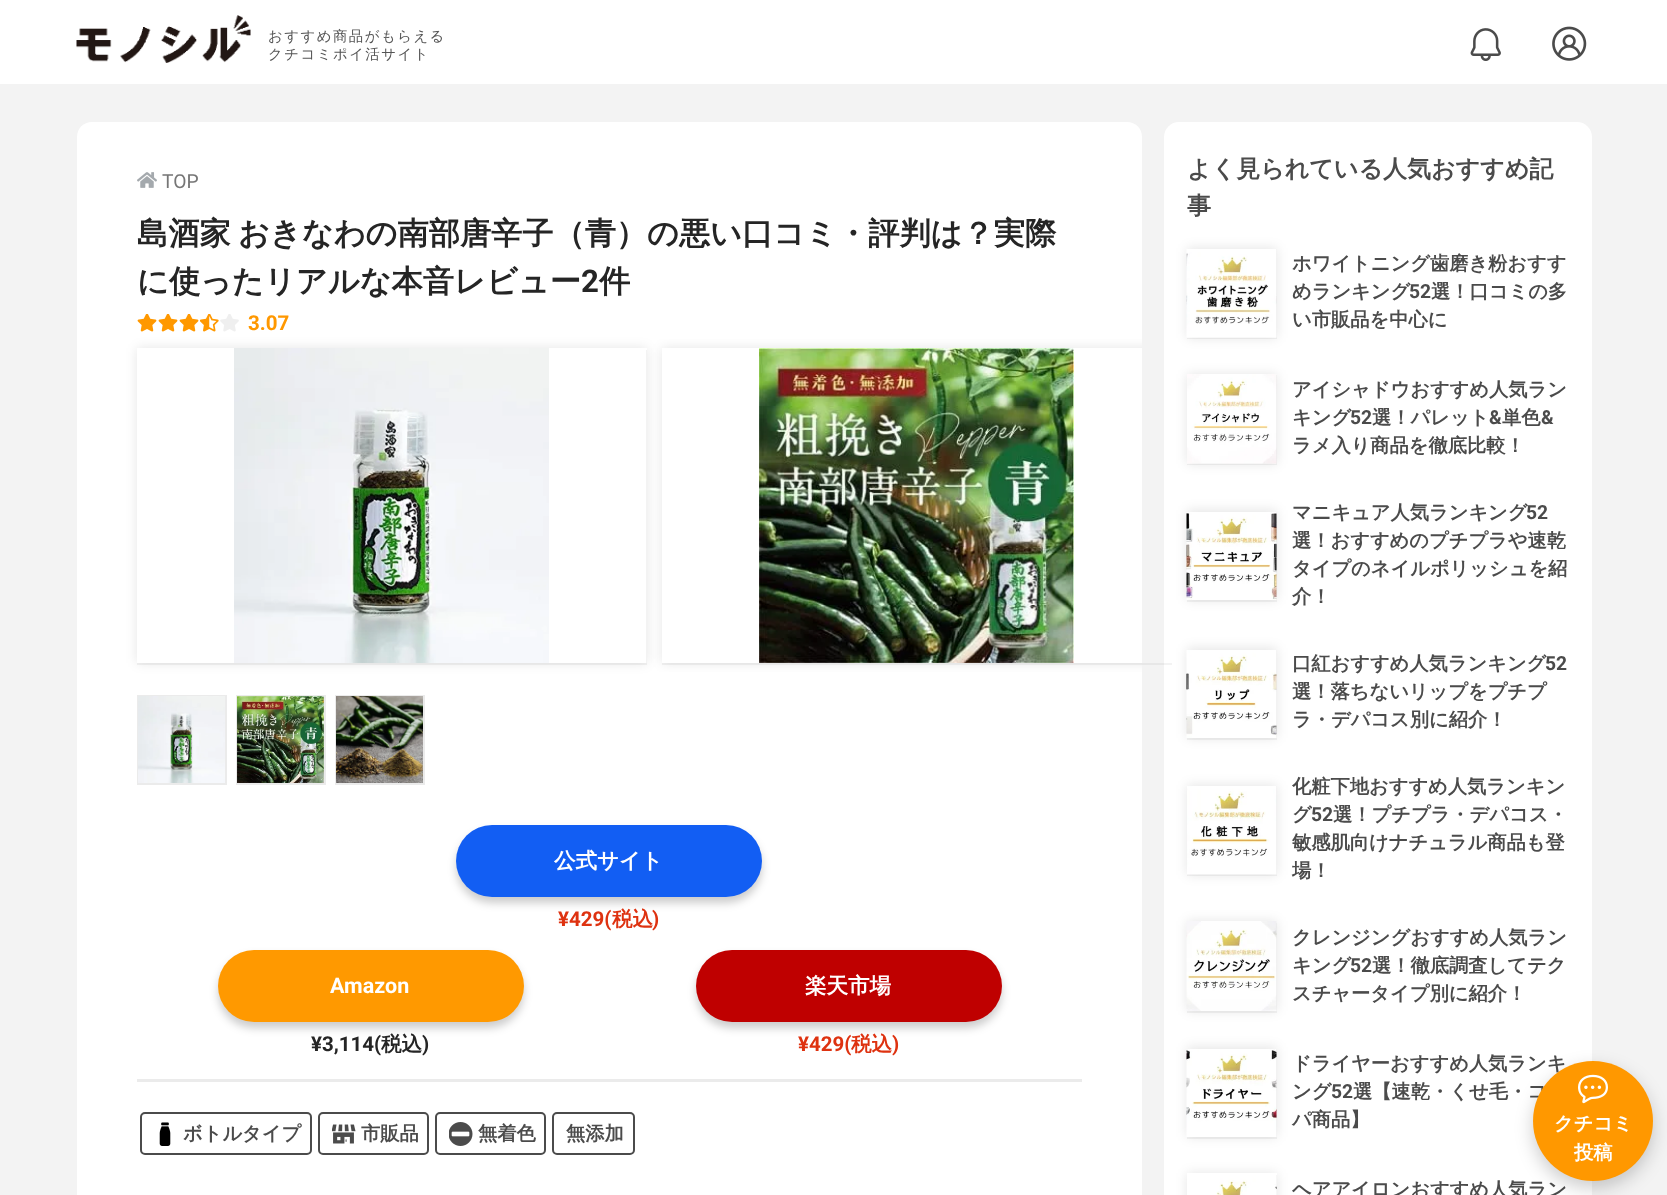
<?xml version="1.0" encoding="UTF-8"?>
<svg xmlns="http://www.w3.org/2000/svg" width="1667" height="1195">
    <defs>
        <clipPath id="clip1"><path d="M 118 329 H 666 V 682 H 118 Z M 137 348 H 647 V 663 H 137 Z" clip-rule="evenodd"/></clipPath>
        <filter id="blur1" x="-50%" y="-200%" width="200%" height="500%"><feGaussianBlur stdDeviation="6"/></filter>
        <clipPath id="clip2"><rect x="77" y="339" width="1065" height="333"/></clipPath>
        <clipPath id="clip3"><path d="M 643 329 H 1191 V 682 H 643 Z M 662 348 H 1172 V 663 H 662 Z" clip-rule="evenodd"/></clipPath>
        <filter id="blur2" x="-50%" y="-200%" width="200%" height="500%"><feGaussianBlur stdDeviation="4.5"/></filter>
        <clipPath id="clip4"><path d="M 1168 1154 H 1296 V 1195 H 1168 Z M 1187 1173 H 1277 V 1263 H 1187 Z" clip-rule="evenodd"/></clipPath>
        <filter id="blur3" x="-50%" y="-200%" width="200%" height="500%"><feGaussianBlur stdDeviation="9"/></filter>
    </defs>
    <rect width="100%" height="100%" fill="#F3F3F3"/>
    <rect x="0" y="0" width="1667" height="84" fill="#FFFFFF"/>
    <image x="76" y="15" width="175" height="48" href="img_01.png"/>
    <text font-family="WenQuanYi Zen Hei" font-size="14.4" font-weight="500" letter-spacing="1.5" fill="#555555">
        <tspan x="268" y="41">おすすめ商品がもらえる</tspan>
        <tspan x="268" y="59">クチコミポイ活サイト</tspan>
    </text>
    <image x="1470" y="28" width="31" height="33" href="img_02.png"/>
    <image x="1552" y="26" width="35" height="35" href="img_03.png"/>
    <path d="M 92 122 H 1127 C 1135.5 122 1142 128.5 1142 137 V 816 H 77 V 137 C 77 128.5 83.5 122 92 122 Z" fill="#FFFFFF"/>
    <image x="137" y="172" width="20" height="16" href="img_04.png"/>
    <text x="162" y="188" font-family="Roboto" font-size="19.25" fill="#767676">TOP</text>
    <text font-family="WenQuanYi Zen Hei" font-size="31.2" font-weight="700" fill="#252525">
        <tspan x="137" y="244" word-spacing="-2">島酒家 おきなわの南部唐辛子（青）の悪い口コミ・評判は？実際</tspan>
        <tspan x="137" y="292">に使ったリアルな本音レビュー</tspan>
    </text>
    <text x="581" y="292" font-family="Roboto" font-size="31.2" font-weight="700" fill="#252525">2</text>
    <text x="599" y="292" font-family="WenQuanYi Zen Hei" font-size="31.2" font-weight="700" fill="#252525">件</text>
    <image x="137" y="314" width="20" height="18" href="img_05.png"/>
    <image x="158" y="314" width="20" height="18" href="img_05.png"/>
    <image x="179" y="314" width="20" height="18" href="img_05.png"/>
    <image x="200" y="314" width="19" height="18" href="img_06.png"/>
    <image x="220" y="314" width="19" height="18" href="img_07.png"/>
    <text x="248" y="330" font-family="Roboto" font-size="20.5" font-weight="700" fill="#FF9800">3.07</text>
    <g clip-path="url(#clip1)">
        <rect x="137" y="348" width="510" height="315" fill="#11111A" fill-opacity="0.1" filter="url(#blur1)"/>
    </g>
    <path d="M 137 663 V 665 H 647 V 350 H 646 V 663 Z" fill="#11111A" fill-opacity="0.05"/>
    <image x="234" y="348" width="315" height="315" href="img_08.png"/>
    <rect x="1164" y="122" width="428" height="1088" rx="15" fill="#FFFFFF"/>
    <rect x="1187" y="248" width="90" height="90" fill="#11111A" fill-opacity="0.1" filter="url(#blur1)"/>
    <path d="M 1187 338 V 339 H 1277 V 249 H 1276 V 338 Z" fill="#11111A" fill-opacity="0.05"/>
    <image x="1186" y="249" width="91" height="89" href="img_16.png"/>
    <rect x="1187" y="374" width="90" height="90" fill="#11111A" fill-opacity="0.1" filter="url(#blur1)"/>
    <path d="M 1187 464 V 465 H 1277 V 375 H 1276 V 464 Z" fill="#11111A" fill-opacity="0.05"/>
    <image x="1187" y="374" width="90" height="90" href="img_17.png"/>
    <rect x="1187" y="510" width="90" height="90" fill="#11111A" fill-opacity="0.1" filter="url(#blur1)"/>
    <path d="M 1187 600 V 602 H 1277 V 512 H 1276 V 600 Z" fill="#11111A" fill-opacity="0.05"/>
    <image x="1186" y="512" width="91" height="88" href="img_18.png"/>
    <rect x="1187" y="648" width="90" height="90" fill="#11111A" fill-opacity="0.1" filter="url(#blur1)"/>
    <path d="M 1187 738 V 740 H 1277 V 650 H 1276 V 738 Z" fill="#11111A" fill-opacity="0.05"/>
    <image x="1186" y="650" width="91" height="88" href="img_19.png"/>
    <g clip-path="url(#clip2)">
        <g clip-path="url(#clip3)">
            <rect x="662" y="348" width="510" height="315" fill="#11111A" fill-opacity="0.1" filter="url(#blur1)"/>
        </g>
    </g>
    <path d="M 662 663 V 665 H 1172 V 350 V 663 Z" fill="#11111A" fill-opacity="0.05"/>
    <image x="759" y="348" width="315" height="315" href="img_09.png"/>
    <rect x="138" y="696" width="88" height="88" fill="none" stroke="#EBEBEB" stroke-width="2"/>
    <image x="138" y="696" width="87" height="87" href="img_10.png"/>
    <rect x="237" y="696" width="88" height="88" fill="none" stroke="#EBEBEB" stroke-width="2"/>
    <image x="237" y="696" width="87" height="87" href="img_11.png"/>
    <rect x="336" y="696" width="88" height="88" fill="none" stroke="#EBEBEB" stroke-width="2"/>
    <image x="336" y="696" width="87" height="87" href="img_12.png"/>
    <rect x="77" y="816" width="1065" height="379" fill="#FFFFFF"/>
    <rect x="456" y="831" width="306" height="72" rx="36" fill="#000000" fill-opacity="0.2" filter="url(#blur2)"/>
    <rect x="456" y="825" width="306" height="72" rx="36" fill="#125EF3"/>
    <text x="554" y="868" font-family="WenQuanYi Zen Hei" font-size="21.5" font-weight="700" fill="#FFFFFF">公式サイト</text>
    <text x="558" y="926" font-family="Roboto" font-size="20.5" font-weight="700" fill="#DE3210">¥429(</text>
    <text x="612" y="926" font-family="WenQuanYi Zen Hei" font-size="20.5" font-weight="700" fill="#DE3210">税込</text>
    <text x="652" y="926" font-family="Roboto" font-size="20.5" font-weight="700" fill="#DE3210">)</text>
    <rect x="218" y="956" width="306" height="72" rx="36" fill="#000000" fill-opacity="0.2" filter="url(#blur2)"/>
    <rect x="218" y="950" width="306" height="72" rx="36" fill="#FF9900"/>
    <text x="330" y="993" font-family="Roboto" font-size="21.5" font-weight="700" fill="#FFFFFF">Amazon</text>
    <text x="311" y="1051" font-family="Roboto" font-size="20.5" font-weight="700" fill="#252525">¥3,114(</text>
    <text x="381" y="1051" font-family="WenQuanYi Zen Hei" font-size="20.5" font-weight="700" fill="#252525">税込</text>
    <text x="422" y="1051" font-family="Roboto" font-size="20.5" font-weight="700" fill="#252525">)</text>
    <rect x="696" y="956" width="306" height="72" rx="36" fill="#000000" fill-opacity="0.2" filter="url(#blur2)"/>
    <rect x="696" y="950" width="306" height="72" rx="36" fill="#BF0000"/>
    <text x="805" y="993" font-family="WenQuanYi Zen Hei" font-size="21.5" font-weight="700" fill="#FFFFFF">楽天市場</text>
    <text x="798" y="1051" font-family="Roboto" font-size="20.5" font-weight="700" fill="#DE3210">¥429(</text>
    <text x="851" y="1051" font-family="WenQuanYi Zen Hei" font-size="20.5" font-weight="700" fill="#DE3210">税込</text>
    <text x="892" y="1051" font-family="Roboto" font-size="20.5" font-weight="700" fill="#DE3210">)</text>
    <rect x="137" y="1079" width="945" height="3" fill="#EBEBEB"/>
    <rect x="141" y="1113" width="170" height="41" rx="4" fill="none" stroke="#4B4B4B" stroke-width="2"/>
    <image x="159" y="1122" width="12" height="24" href="img_13.png"/>
    <text x="183" y="1140" font-family="WenQuanYi Zen Hei" font-size="19.25" font-weight="700" fill="#4B4B4B">ボトルタイプ</text>
    <rect x="319" y="1113" width="109" height="41" rx="4" fill="none" stroke="#4B4B4B" stroke-width="2"/>
    <image x="332" y="1124" width="24" height="20" href="img_14.png"/>
    <text x="361" y="1140" font-family="WenQuanYi Zen Hei" font-size="19.25" font-weight="700" fill="#4B4B4B">市販品</text>
    <rect x="436" y="1113" width="109" height="41" rx="4" fill="none" stroke="#4B4B4B" stroke-width="2"/>
    <image x="449" y="1122" width="24" height="24" href="img_15.png"/>
    <text x="478" y="1140" font-family="WenQuanYi Zen Hei" font-size="19.25" font-weight="700" fill="#4B4B4B">無着色</text>
    <rect x="553" y="1113" width="81" height="41" rx="4" fill="none" stroke="#4B4B4B" stroke-width="2"/>
    <text x="566" y="1140" font-family="WenQuanYi Zen Hei" font-size="19.25" font-weight="700" fill="#4B4B4B">無添加</text>
    <text font-family="WenQuanYi Zen Hei" font-size="24" font-weight="700" fill="#4B4B4B">
        <tspan x="1187" y="177">よく見られている人気おすすめ記</tspan>
        <tspan x="1187" y="214">事</tspan>
    </text>
    <text font-family="WenQuanYi Zen Hei" font-size="19.25" font-weight="700" fill="#4B4B4B">
        <tspan x="1292" y="270">ホワイトニング歯磨き粉おすす</tspan>
        <tspan x="1292" y="298">めランキング</tspan>
    </text>
    <text x="1409" y="298" font-family="Roboto" font-size="19.25" font-weight="700" fill="#4B4B4B">52</text>
    <text x="1431" y="298" font-family="WenQuanYi Zen Hei" font-size="19.25" font-weight="700" fill="#4B4B4B">選！口コミの多</text>
    <text x="1292" y="326" font-family="WenQuanYi Zen Hei" font-size="19.25" font-weight="700" fill="#4B4B4B">い市販品を中心に</text>
    <text font-family="WenQuanYi Zen Hei" font-size="19.25" font-weight="700" fill="#4B4B4B">
        <tspan x="1292" y="396">アイシャドウおすすめ人気ラン</tspan>
        <tspan x="1292" y="424">キング</tspan>
    </text>
    <text x="1350" y="424" font-family="Roboto" font-size="19.25" font-weight="700" fill="#4B4B4B">52</text>
    <text x="1372" y="424" font-family="WenQuanYi Zen Hei" font-size="19.25" font-weight="700" fill="#4B4B4B">選！パレット</text>
    <text x="1489" y="424" font-family="Roboto" font-size="19.25" font-weight="700" fill="#4B4B4B">&amp;</text>
    <text x="1502" y="424" font-family="WenQuanYi Zen Hei" font-size="19.25" font-weight="700" fill="#4B4B4B">単色</text>
    <text x="1541" y="424" font-family="Roboto" font-size="19.25" font-weight="700" fill="#4B4B4B">&amp;</text>
    <text x="1292" y="452" font-family="WenQuanYi Zen Hei" font-size="19.25" font-weight="700" fill="#4B4B4B">ラメ入り商品を徹底比較！</text>
    <text x="1292" y="519" font-family="WenQuanYi Zen Hei" font-size="19.25" font-weight="700" fill="#4B4B4B">マニキュア人気ランキング</text>
    <text x="1526" y="519" font-family="Roboto" font-size="19.25" font-weight="700" fill="#4B4B4B">52</text>
    <text font-family="WenQuanYi Zen Hei" font-size="19.25" font-weight="700" fill="#4B4B4B">
        <tspan x="1292" y="547">選！おすすめのプチプラや速乾</tspan>
        <tspan x="1292" y="575">タイプのネイルポリッシュを紹</tspan>
        <tspan x="1292" y="603">介！</tspan>
    </text>
    <text x="1292" y="670" font-family="WenQuanYi Zen Hei" font-size="19.25" font-weight="700" fill="#4B4B4B">口紅おすすめ人気ランキング</text>
    <text x="1545" y="670" font-family="Roboto" font-size="19.25" font-weight="700" fill="#4B4B4B">52</text>
    <text font-family="WenQuanYi Zen Hei" font-size="19.25" font-weight="700" fill="#4B4B4B">
        <tspan x="1292" y="698">選！落ちないリップをプチプ</tspan>
        <tspan x="1292" y="726">ラ・デパコス別に紹介！</tspan>
    </text>
    <rect x="1187" y="785" width="90" height="90" fill="#11111A" fill-opacity="0.1" filter="url(#blur1)"/>
    <path d="M 1187 874 V 876 H 1277 V 786 H 1276 V 874 Z" fill="#11111A" fill-opacity="0.05"/>
    <image x="1187" y="786" width="90" height="89" href="img_20.png"/>
    <text font-family="WenQuanYi Zen Hei" font-size="19.25" font-weight="700" fill="#4B4B4B">
        <tspan x="1292" y="793">化粧下地おすすめ人気ランキン</tspan>
        <tspan x="1292" y="821">グ</tspan>
    </text>
    <text x="1311" y="821" font-family="Roboto" font-size="19.25" font-weight="700" fill="#4B4B4B">52</text>
    <text x="1333" y="821" font-family="WenQuanYi Zen Hei" font-size="19.25" font-weight="700" fill="#4B4B4B">選！プチプラ・デパコス・</text>
    <text font-family="WenQuanYi Zen Hei" font-size="19.25" font-weight="700" fill="#4B4B4B">
        <tspan x="1292" y="849">敏感肌向けナチュラル商品も登</tspan>
        <tspan x="1292" y="877">場！</tspan>
    </text>
    <rect x="1187" y="921" width="90" height="90" fill="#11111A" fill-opacity="0.1" filter="url(#blur1)"/>
    <path d="M 1187 1011 V 1013 H 1277 V 923 H 1276 V 1011 Z" fill="#11111A" fill-opacity="0.05"/>
    <image x="1186" y="921" width="91" height="90" href="img_21.png"/>
    <text font-family="WenQuanYi Zen Hei" font-size="19.25" font-weight="700" fill="#4B4B4B">
        <tspan x="1292" y="944">クレンジングおすすめ人気ラン</tspan>
        <tspan x="1292" y="972">キング</tspan>
    </text>
    <text x="1350" y="972" font-family="Roboto" font-size="19.25" font-weight="700" fill="#4B4B4B">52</text>
    <text x="1372" y="972" font-family="WenQuanYi Zen Hei" font-size="19.25" font-weight="700" fill="#4B4B4B">選！徹底調査してテク</text>
    <text x="1292" y="1000" font-family="WenQuanYi Zen Hei" font-size="19.25" font-weight="700" fill="#4B4B4B">スチャータイプ別に紹介！</text>
    <rect x="1187" y="1047" width="90" height="90" fill="#11111A" fill-opacity="0.1" filter="url(#blur1)"/>
    <path d="M 1187 1137 V 1139 H 1277 V 1049 H 1276 V 1137 Z" fill="#11111A" fill-opacity="0.05"/>
    <image x="1186" y="1049" width="91" height="88" href="img_22.png"/>
    <text font-family="WenQuanYi Zen Hei" font-size="19.25" font-weight="700" fill="#4B4B4B">
        <tspan x="1292" y="1070">ドライヤーおすすめ人気ランキ</tspan>
        <tspan x="1292" y="1098">ング</tspan>
    </text>
    <text x="1331" y="1098" font-family="Roboto" font-size="19.25" font-weight="700" fill="#4B4B4B">52</text>
    <text x="1353" y="1098" font-family="WenQuanYi Zen Hei" font-size="19.25" font-weight="700" fill="#4B4B4B">選【速乾・くせ毛・コ</text>
    <text x="1292" y="1126" font-family="WenQuanYi Zen Hei" font-size="19.25" font-weight="700" fill="#4B4B4B">パ商品】</text>
    <g clip-path="url(#clip4)">
        <rect x="1187" y="1173" width="90" height="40" fill="#11111A" fill-opacity="0.1" filter="url(#blur1)"/>
    </g>
    <path d="M 1187 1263 V 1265 H 1277 V 1175 H 1276 V 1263 Z" fill="#EEEEEE"/>
    <image x="1216" y="1175" width="61" height="20" href="img_23.png"/>
    <text x="1292" y="1196" font-family="WenQuanYi Zen Hei" font-size="19.25" font-weight="700" fill="#4B4B4B">ヘアアイロンおすすめ人気ラン</text>
    <rect x="1533" y="1068" width="120" height="120" rx="60" fill="#000000" fill-opacity="0.2" filter="url(#blur3)"/>
    <circle cx="1593" cy="1121" r="60" fill="#FF9800"/>
    <image x="1578" y="1074" width="30" height="30" href="img_24.png"/>
    <text x="1554" y="1130" font-family="WenQuanYi Zen Hei" font-size="19.25" font-weight="700" fill="#FFFFFF">クチコミ</text>
    <text x="1574" y="1159" font-family="WenQuanYi Zen Hei" font-size="19.25" font-weight="700" fill="#FFFFFF">投稿</text>
</svg>
